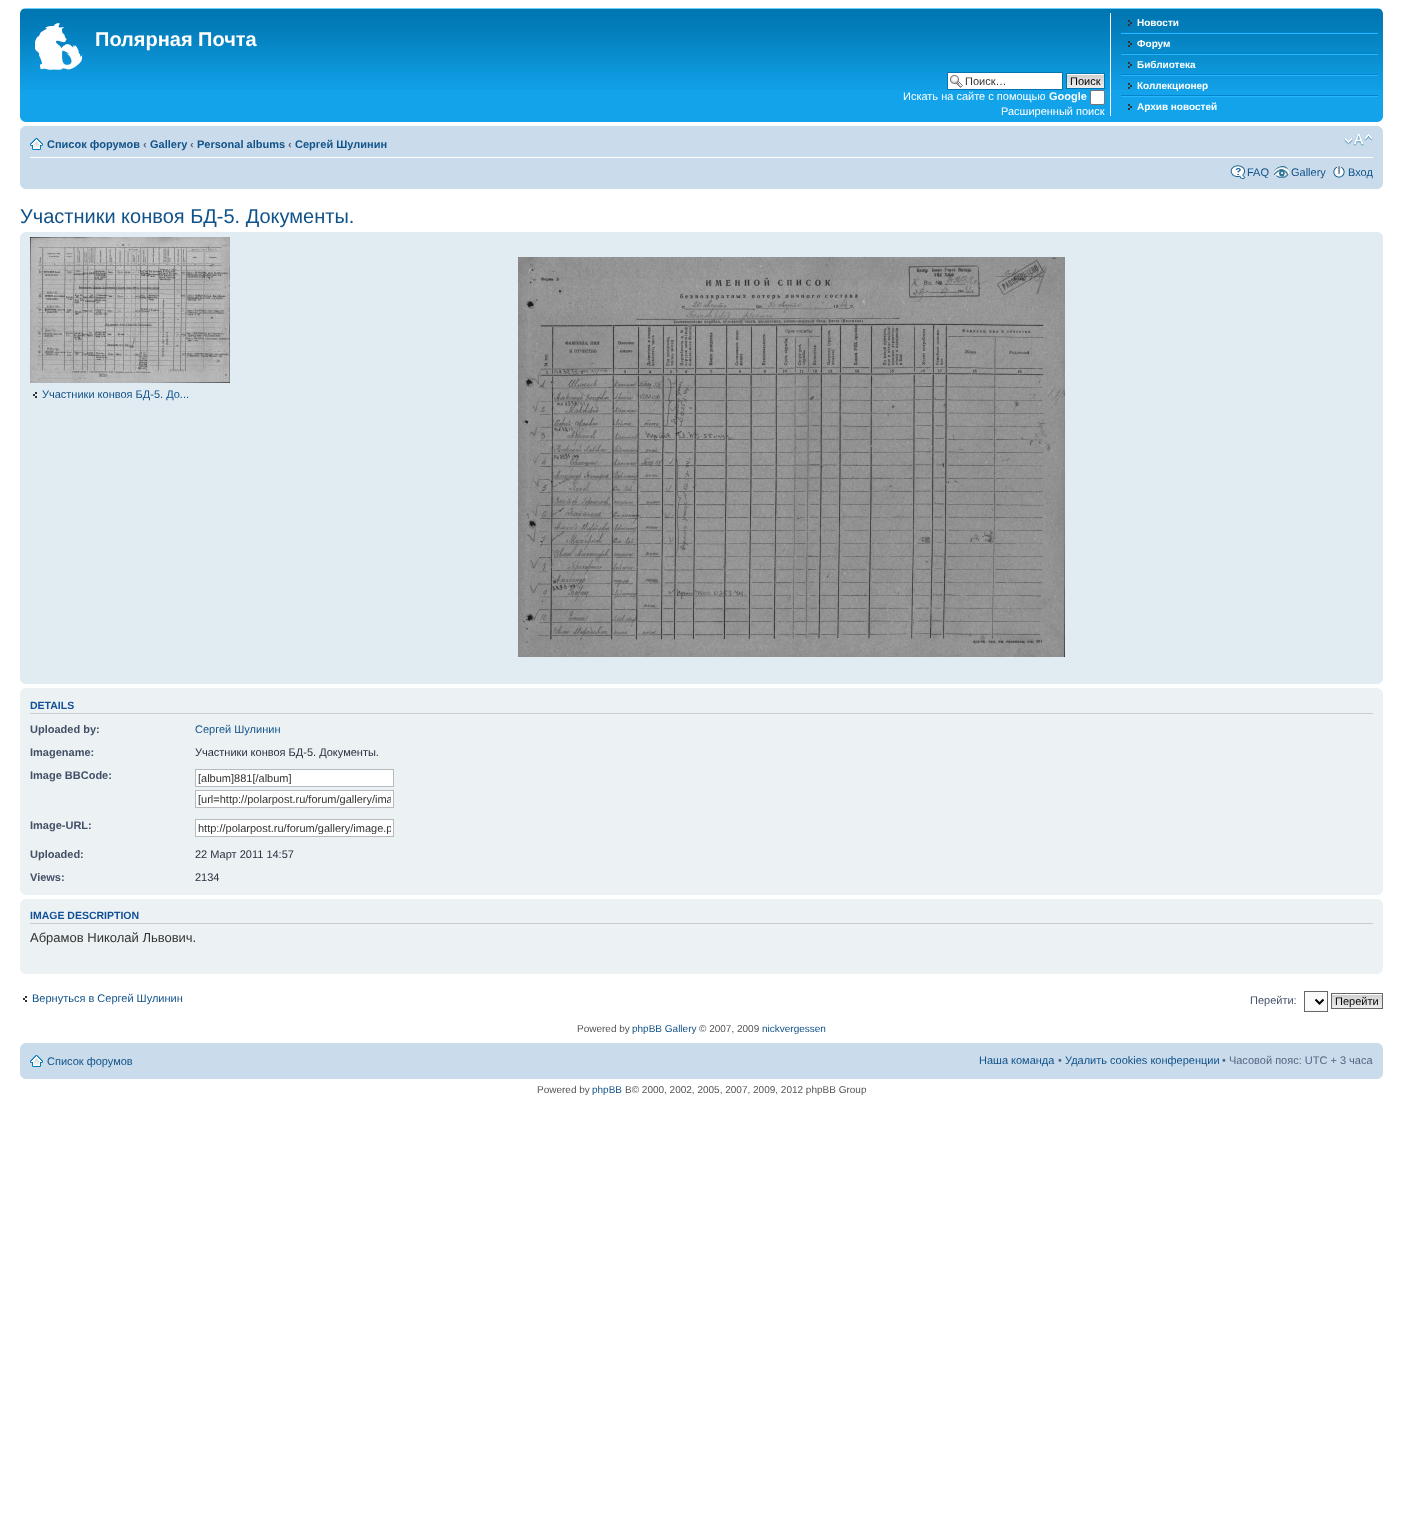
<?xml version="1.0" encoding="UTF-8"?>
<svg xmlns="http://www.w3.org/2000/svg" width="1403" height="1532">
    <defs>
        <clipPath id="clip1"><rect x="198" y="772" width="193" height="12"/></clipPath>
        <clipPath id="clip2"><rect x="198" y="793" width="193" height="12"/></clipPath>
        <clipPath id="clip3"><rect x="198" y="822" width="193" height="12"/></clipPath>
    </defs>
    <rect width="100%" height="100%" fill="#FFFFFF"/>
    <rect x="20" y="90" width="1363" height="32" fill="#12A3EB"/>
    <image x="20" y="8" width="1363" height="82" href="img_01.png"/>
    <image x="20" y="8" width="5" height="5" href="img_02.png"/>
    <image x="1378" y="8" width="5" height="5" href="img_03.png"/>
    <image x="35" y="23" width="47" height="47" href="img_04.png"/>
    <text x="95" y="46" font-family="Liberation Sans" font-size="20" font-weight="700" fill="#FFFFFF">Полярная Почта</text>
    <rect x="1110" y="13" width="1" height="103" fill="#FFFFFF"/>
    <rect x="1121" y="32" width="257" height="1" fill="#0084CC"/>
    <image x="1128" y="20" width="4" height="6" href="img_05.png"/>
    <text x="1137" y="26" font-family="Liberation Sans" font-size="10" font-weight="700" fill="#FFFFFF">Новости</text>
    <rect x="1121" y="33" width="257" height="1" fill="#26B7FF"/>
    <rect x="1121" y="53" width="257" height="1" fill="#0084CC"/>
    <image x="1128" y="41" width="4" height="6" href="img_06.png"/>
    <text x="1137" y="47" font-family="Liberation Sans" font-size="10" font-weight="700" fill="#FFFFFF">Форум</text>
    <rect x="1121" y="54" width="257" height="1" fill="#26B7FF"/>
    <rect x="1121" y="74" width="257" height="1" fill="#0084CC"/>
    <image x="1128" y="62" width="4" height="6" href="img_07.png"/>
    <text x="1137" y="68" font-family="Liberation Sans" font-size="10" font-weight="700" fill="#FFFFFF">Библиотека</text>
    <rect x="1121" y="75" width="257" height="1" fill="#26B7FF"/>
    <rect x="1121" y="95" width="257" height="1" fill="#0084CC"/>
    <image x="1128" y="83" width="4" height="6" href="img_08.png"/>
    <text x="1137" y="89" font-family="Liberation Sans" font-size="10" font-weight="700" fill="#FFFFFF">Коллекционер</text>
    <rect x="1121" y="96" width="257" height="1" fill="#26B7FF"/>
    <image x="1128" y="104" width="4" height="6" href="img_09.png"/>
    <text x="1137" y="110" font-family="Liberation Sans" font-size="10" font-weight="700" fill="#FFFFFF">Архив новостей</text>
    <rect x="948" y="73" width="114" height="16" fill="#FFFFFF"/>
    <image x="950" y="75" width="13" height="13" href="img_10.png"/>
    <rect x="947.5" y="72.5" width="115" height="17" fill="none" stroke="#0075B0"/>
    <text x="965" y="85" font-family="Liberation Sans" font-size="11" fill="#333333">Поиск…</text>
    <image x="1067" y="74" width="37" height="14" href="img_11.png"/>
    <rect x="1066.5" y="73.5" width="38" height="15" fill="none" stroke="#0075B0"/>
    <text x="1070" y="85" font-family="Liberation Sans" font-size="11" fill="#000000">Поиск</text>
    <text x="903" y="100" font-family="Liberation Sans" font-size="11" fill="#FFFFFF">Искать на сайте с помощью</text>
    <text x="1049" y="100" font-family="Liberation Sans" font-size="11" font-weight="700" fill="#FFFFFF">Google</text>
    <rect x="1090.5" y="90.5" width="14" height="14" rx="1.5" fill="#FFFFFF" stroke="#767676"/>
    <text x="1001" y="115" font-family="Liberation Sans" font-size="11" fill="#FFFFFF">Расширенный поиск</text>
    <image x="20" y="117" width="5" height="5" href="img_12.png"/>
    <image x="1378" y="117" width="5" height="5" href="img_13.png"/>
    <rect x="20" y="126" width="1363" height="63" fill="#CADCEB"/>
    <image x="20" y="126" width="5" height="5" href="img_14.png"/>
    <image x="1378" y="126" width="5" height="5" href="img_15.png"/>
    <rect x="30" y="157" width="1343" height="1" fill="#FFFFFF"/>
    <image x="30" y="138" width="13" height="12" href="img_16.png"/>
    <text x="47" y="148" font-family="Liberation Sans" font-size="11" font-weight="700" fill="#105289">Список форумов</text>
    <text x="143" y="148" font-family="Liberation Sans" font-size="11" font-weight="700" fill="#536482">‹</text>
    <text x="150" y="148" font-family="Liberation Sans" font-size="11" font-weight="700" fill="#105289">Gallery</text>
    <text x="190" y="148" font-family="Liberation Sans" font-size="11" font-weight="700" fill="#536482">‹</text>
    <text x="197" y="148" font-family="Liberation Sans" font-size="11" font-weight="700" fill="#105289">Personal albums</text>
    <text x="288" y="148" font-family="Liberation Sans" font-size="11" font-weight="700" fill="#536482">‹</text>
    <text x="295" y="148" font-family="Liberation Sans" font-size="11" font-weight="700" fill="#105289">Сергей Шулинин</text>
    <image x="1344" y="134" width="29" height="12" href="img_17.png"/>
    <image x="1230" y="165" width="16" height="14" href="img_18.png"/>
    <text x="1247" y="176" font-family="Liberation Sans" font-size="11" fill="#105289">FAQ</text>
    <image x="1274" y="166" width="15" height="12" href="img_19.png"/>
    <text x="1291" y="176" font-family="Liberation Sans" font-size="11" fill="#105289">Gallery</text>
    <image x="1333" y="166" width="12" height="12" href="img_20.png"/>
    <text x="1348" y="176" font-family="Liberation Sans" font-size="11" fill="#105289">Вход</text>
    <image x="20" y="184" width="5" height="5" href="img_21.png"/>
    <image x="1378" y="184" width="5" height="5" href="img_22.png"/>
    <text x="20" y="223" font-family="Liberation Sans" font-size="20" fill="#105289">Участники конвоя БД-5. Документы.</text>
    <rect x="20" y="232" width="1363" height="452" fill="#E1EBF2"/>
    <image x="20" y="232" width="5" height="5" href="img_23.png"/>
    <image x="1378" y="232" width="5" height="5" href="img_24.png"/>
    <image x="30" y="237" width="200" height="146" href="img_25.png"/>
    <image x="33" y="392" width="4" height="6" href="img_26.png"/>
    <text x="42" y="398" font-family="Liberation Sans" font-size="11" fill="#105289">Участники конвоя БД-5. До...</text>
    <image x="518" y="257" width="547" height="400" href="img_27.png"/>
    <image x="20" y="679" width="5" height="5" href="img_28.png"/>
    <image x="1378" y="679" width="5" height="5" href="img_29.png"/>
    <rect x="20" y="688" width="1363" height="207" fill="#ECF1F3"/>
    <image x="20" y="688" width="5" height="5" href="img_30.png"/>
    <image x="1378" y="688" width="5" height="5" href="img_31.png"/>
    <rect x="30" y="713" width="1343" height="1" fill="#CCCCCC"/>
    <text x="30" y="709" font-family="Liberation Sans" font-size="10.5" font-weight="700" fill="#115098">DETAILS</text>
    <text x="30" y="733" font-family="Liberation Sans" font-size="11" font-weight="700" fill="#425067">Uploaded by:</text>
    <text x="195" y="733" font-family="Liberation Sans" font-size="11" fill="#105289">Сергей Шулинин</text>
    <text x="30" y="756" font-family="Liberation Sans" font-size="11" font-weight="700" fill="#425067">Imagename:</text>
    <text x="195" y="756" font-family="Liberation Sans" font-size="11" fill="#28313F">Участники конвоя БД-5. Документы.</text>
    <text x="30" y="779" font-family="Liberation Sans" font-size="11" font-weight="700" fill="#425067">Image BBCode:</text>
    <rect x="195.5" y="769.5" width="198" height="17" fill="#FFFFFF" stroke="#B4BAC0"/>
    <g clip-path="url(#clip1)">
        <text x="198" y="782" font-family="Liberation Sans" font-size="11" fill="#333333">[album]881[/album]</text>
    </g>
    <rect x="195.5" y="790.5" width="198" height="17" fill="#FFFFFF" stroke="#B4BAC0"/>
    <g clip-path="url(#clip2)">
        <text x="198" y="803" font-family="Liberation Sans" font-size="11" fill="#333333">[url=http://polarpost.ru/forum/gallery/ima</text>
    </g>
    <text x="30" y="829" font-family="Liberation Sans" font-size="11" font-weight="700" fill="#425067">Image-URL:</text>
    <rect x="195.5" y="819.5" width="198" height="17" fill="#FFFFFF" stroke="#B4BAC0"/>
    <g clip-path="url(#clip3)">
        <text x="198" y="832" font-family="Liberation Sans" font-size="11" fill="#333333">http://polarpost.ru/forum/gallery/image.p</text>
    </g>
    <text x="30" y="858" font-family="Liberation Sans" font-size="11" font-weight="700" fill="#425067">Uploaded:</text>
    <text x="195" y="858" font-family="Liberation Sans" font-size="11" fill="#28313F">22 Март 2011 14:57</text>
    <text x="30" y="881" font-family="Liberation Sans" font-size="11" font-weight="700" fill="#425067">Views:</text>
    <text x="195" y="881" font-family="Liberation Sans" font-size="11" fill="#28313F">2134</text>
    <image x="20" y="890" width="5" height="5" href="img_32.png"/>
    <image x="1378" y="890" width="5" height="5" href="img_33.png"/>
    <rect x="20" y="899" width="1363" height="75" fill="#ECF1F3"/>
    <image x="20" y="899" width="5" height="5" href="img_30.png"/>
    <image x="1378" y="899" width="5" height="5" href="img_31.png"/>
    <rect x="30" y="923" width="1343" height="1" fill="#CCCCCC"/>
    <text x="30" y="919" font-family="Liberation Sans" font-size="10.5" font-weight="700" fill="#115098">IMAGE DESCRIPTION</text>
    <text x="30" y="942" font-family="Liberation Sans" font-size="13" fill="#333333">Абрамов Николай Львович.</text>
    <image x="20" y="969" width="5" height="5" href="img_32.png"/>
    <image x="1378" y="969" width="5" height="5" href="img_33.png"/>
    <image x="23" y="996" width="4" height="6" href="img_34.png"/>
    <text x="32" y="1002" font-family="Liberation Sans" font-size="11" fill="#105289">Вернуться в Сергей Шулинин</text>
    <text x="1250" y="1004" font-family="Liberation Sans" font-size="11" fill="#425067">Перейти:</text>
    <rect x="1304.5" y="991.5" width="23" height="20" fill="#FAFAFA" stroke="#666666"/>
    <path d="M 1315.5 999.5 L 1319.5 1003.5 L 1323.5 999.5" fill="none" stroke="#000000" stroke-width="2"/>
    <image x="1332" y="994" width="50" height="14" href="img_35.png"/>
    <rect x="1331.5" y="993.5" width="51" height="15" fill="none" stroke="#666666"/>
    <text x="1335" y="1005" font-family="Liberation Sans" font-size="11" fill="#000000">Перейти</text>
    <text x="577" y="1032" font-family="Liberation Sans" font-size="10" fill="#555555">Powered by</text>
    <text x="632" y="1032" font-family="Liberation Sans" font-size="10" fill="#105289">phpBB Gallery</text>
    <text x="699" y="1032" font-family="Liberation Sans" font-size="10" fill="#555555">© 2007, 2009</text>
    <text x="762" y="1032" font-family="Liberation Sans" font-size="10" fill="#105289">nickvergessen</text>
    <rect x="20" y="1043" width="1363" height="36" fill="#CADCEB"/>
    <image x="20" y="1043" width="5" height="5" href="img_14.png"/>
    <image x="1378" y="1043" width="5" height="5" href="img_15.png"/>
    <image x="30" y="1055" width="13" height="12" href="img_16.png"/>
    <text x="47" y="1065" font-family="Liberation Sans" font-size="11" fill="#105289">Список форумов</text>
    <text x="979" y="1064" font-family="Liberation Sans" font-size="11" fill="#105289">Наша команда</text>
    <text x="1058" y="1064" font-family="Liberation Sans" font-size="11" fill="#536482">•</text>
    <text x="1065" y="1064" font-family="Liberation Sans" font-size="11" fill="#105289">Удалить cookies конференции</text>
    <text x="1222" y="1064" font-family="Liberation Sans" font-size="11" fill="#536482">• Часовой пояс: UTC + 3 часа</text>
    <image x="20" y="1074" width="5" height="5" href="img_21.png"/>
    <image x="1378" y="1074" width="5" height="5" href="img_22.png"/>
    <text x="537" y="1093" font-family="Liberation Sans" font-size="10" fill="#555555">Powered by</text>
    <text x="592" y="1093" font-family="Liberation Sans" font-size="10" fill="#105289">phpBB</text>
    <text x="625" y="1093" font-family="Liberation Sans" font-size="10" fill="#555555">В© 2000, 2002, 2005, 2007, 2009, 2012 phpBB Group</text>
</svg>
